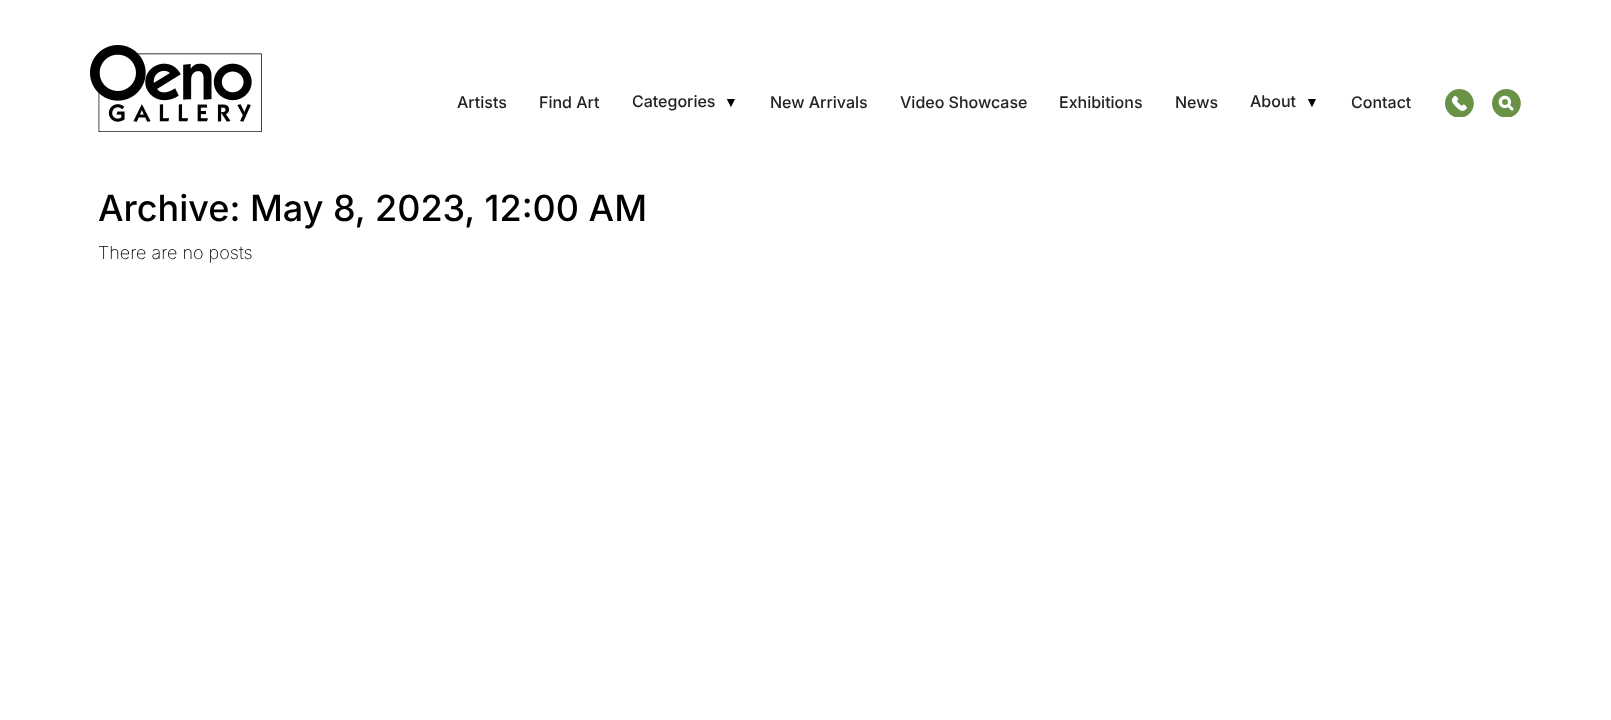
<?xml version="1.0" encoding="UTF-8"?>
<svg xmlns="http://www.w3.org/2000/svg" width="1611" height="720">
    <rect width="100%" height="100%" fill="#FFFFFF"/>
    <image x="90" y="45" width="172" height="87" href="img_01.png"/>
    <text x="457" y="108" font-family="Inter" font-size="16" font-weight="500" fill="#222222">Artists</text>
    <text x="539" y="108" font-family="Inter" font-size="16" font-weight="500" fill="#222222">Find Art</text>
    <text x="632" y="107" font-family="Inter" font-size="16" font-weight="500" fill="#222222">Categories</text>
    <text x="724" y="107" font-family="Liberation Sans" font-size="14" fill="#000000">▼</text>
    <text x="770" y="108" font-family="Inter" font-size="16" font-weight="500" fill="#222222">New Arrivals</text>
    <text x="900" y="108" font-family="Inter" font-size="16" font-weight="500" fill="#222222">Video Showcase</text>
    <text x="1059" y="108" font-family="Inter" font-size="16" font-weight="500" fill="#222222">Exhibitions</text>
    <text x="1175" y="108" font-family="Inter" font-size="16" font-weight="500" fill="#222222">News</text>
    <text x="1250" y="107" font-family="Inter" font-size="16" font-weight="500" fill="#222222">About</text>
    <text x="1305" y="107" font-family="Liberation Sans" font-size="14" fill="#000000">▼</text>
    <text x="1351" y="108" font-family="Inter" font-size="16" font-weight="500" fill="#222222">Contact</text>
    <image x="1445" y="89" width="29" height="28" href="img_02.png"/>
    <image x="1492" y="89" width="29" height="28" href="img_03.png"/>
    <text x="98" y="221" font-family="Inter" font-size="36" font-weight="500" fill="#000000">Archive: May 8, 2023, 12:00 AM</text>
    <text x="98" y="259" font-family="Inter" font-size="18" font-weight="200" fill="#000000">There are no posts</text>
</svg>
